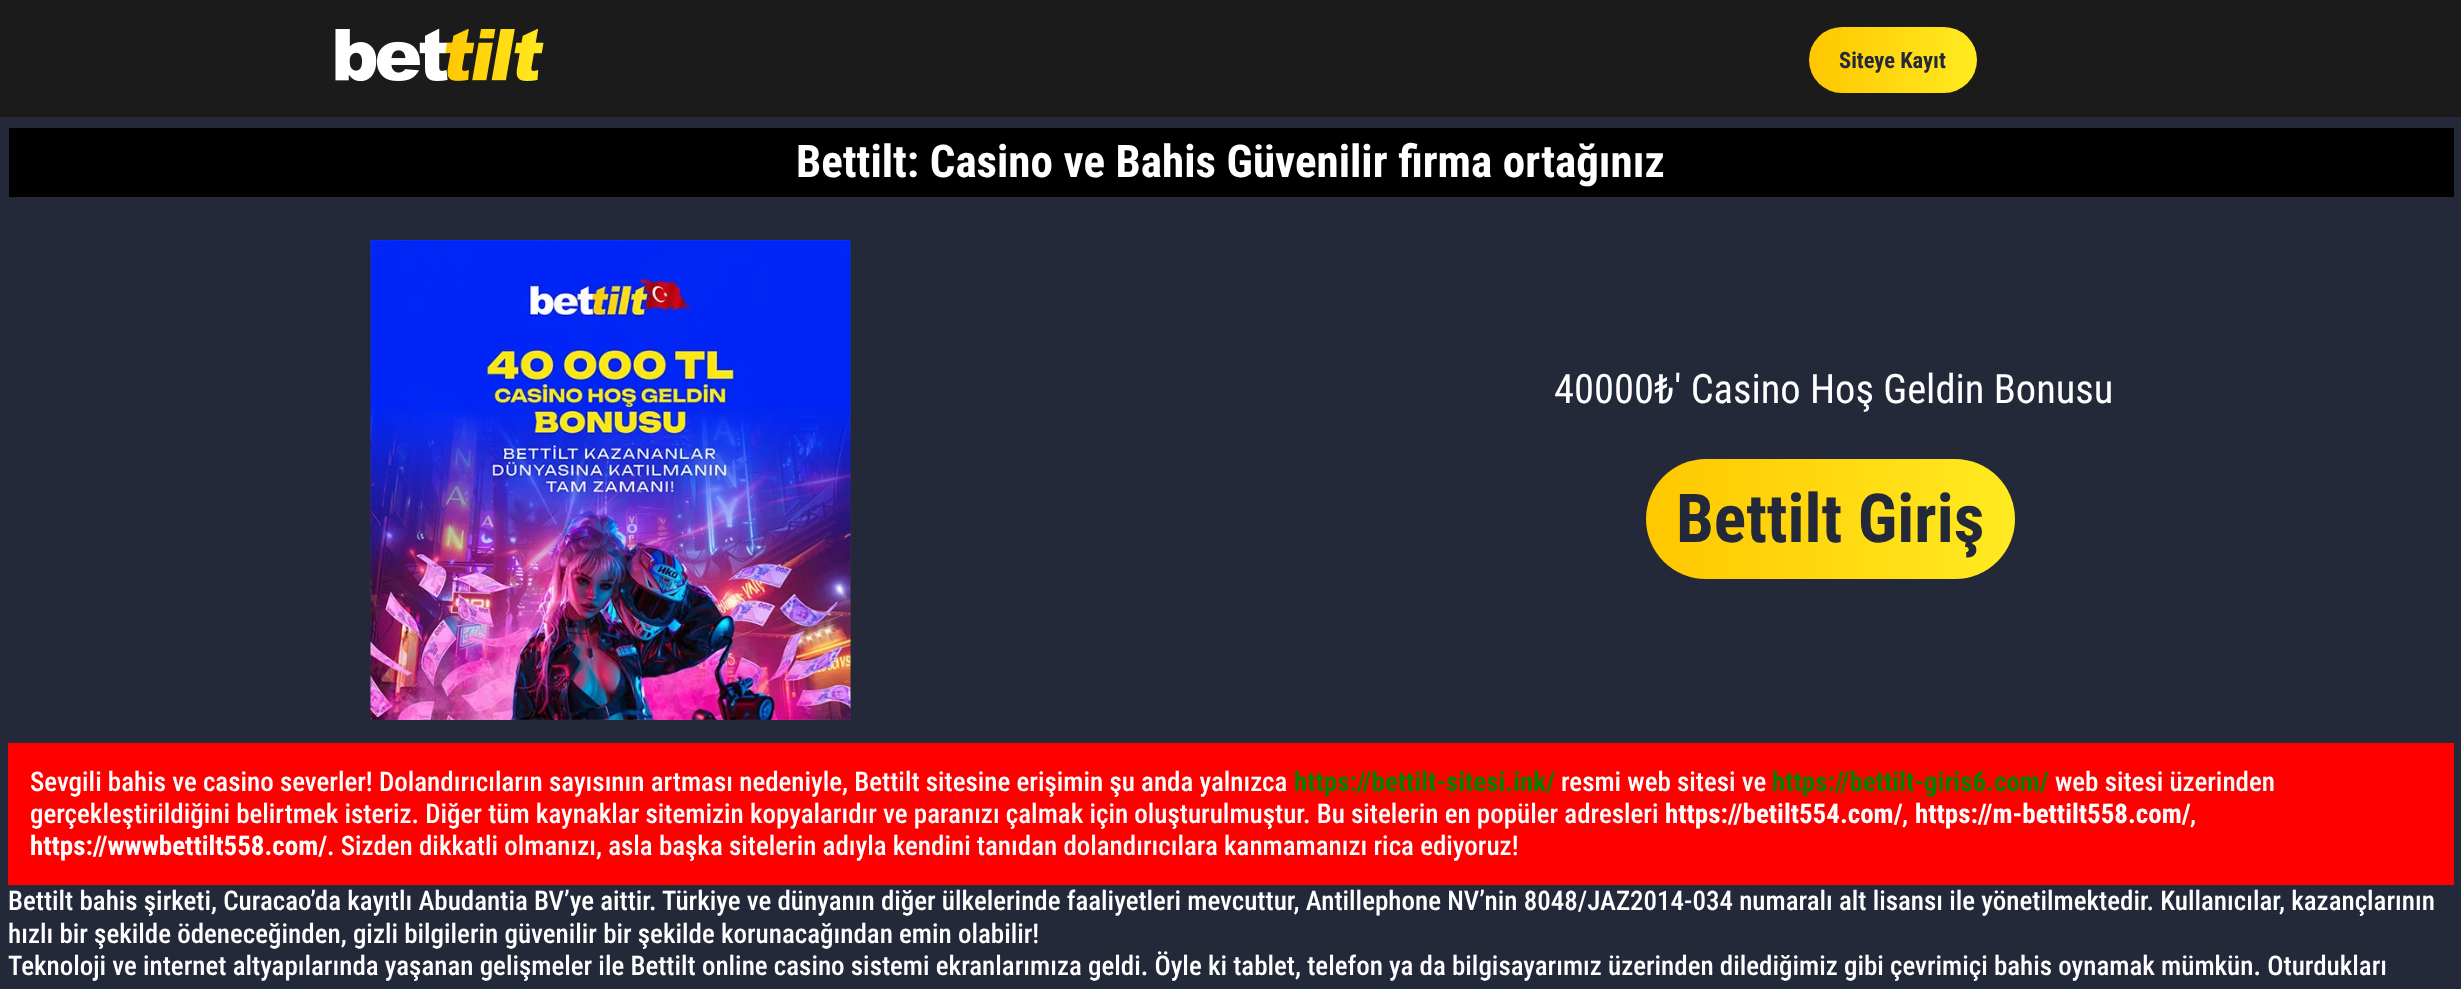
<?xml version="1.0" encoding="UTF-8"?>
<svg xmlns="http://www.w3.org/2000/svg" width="2461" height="989">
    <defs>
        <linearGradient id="g1" gradientUnits="userSpaceOnUse" x1="1809" y1="60" x2="1977" y2="60"><stop offset="0" stop-color="#FFC700"/><stop offset="1" stop-color="#FFEA21"/></linearGradient>
        <linearGradient id="g2" gradientUnits="userSpaceOnUse" x1="1646" y1="519" x2="2015" y2="519"><stop offset="0" stop-color="#FFC700"/><stop offset="1" stop-color="#FFEA21"/></linearGradient>
    </defs>
    <rect width="100%" height="100%" fill="#232939"/>
    <rect x="0" y="0" width="2461" height="117" fill="#1C1B1B"/>
    <image x="335" y="29" width="209" height="52" href="img_01.png"/>
    <rect x="1809" y="27" width="168" height="66" rx="33" fill="url(#g1)"/>
    <text x="1839" y="68" font-family="Roboto Condensed" font-size="22.5" font-weight="700" fill="#232939">Siteye Kayıt</text>
    <rect x="9" y="128" width="2445" height="69" fill="#000000"/>
    <text x="796" y="177" word-spacing="0.25" font-family="Roboto Condensed" font-size="45" font-weight="700" fill="#FFFFFF">Bettilt: Casino ve Bahis Güvenilir firma ortağınız</text>
    <image x="370" y="240" width="481" height="480" href="img_02.png"/>
    <text x="1554" y="403" font-family="Roboto Condensed" font-size="40.5" fill="#FFFFFF">40000₺' Casino Hoş Geldin Bonusu</text>
    <rect x="1646" y="459" width="369" height="120" rx="60" fill="url(#g2)"/>
    <text x="1676" y="542" font-family="Roboto Condensed" font-size="67.5" font-weight="700" fill="#232939">Bettilt Giriş</text>
    <rect x="8" y="743" width="2446" height="142" fill="#FF0000"/>
    <text x="30" y="791" font-family="Roboto Condensed" font-size="27" font-weight="500" fill="#FFFFFF">Sevgili bahis ve casino severler! Dolandırıcıların sayısının artması nedeniyle, Bettilt sitesine erişimin şu anda yalnızca</text>
    <text x="1294" y="791" font-family="Roboto Condensed" font-size="27" font-weight="700" fill="#008000">https://bettilt-sitesi.ink/</text>
    <text x="1561" y="791" font-family="Roboto Condensed" font-size="27" font-weight="500" fill="#FFFFFF">resmi web sitesi ve</text>
    <text x="1772" y="791" font-family="Roboto Condensed" font-size="27" font-weight="700" fill="#008000">https://bettilt-giris6.com/</text>
    <text x="2055" y="791" font-family="Roboto Condensed" font-size="27" font-weight="500" fill="#FFFFFF">web sitesi üzerinden</text>
    <text x="30" y="823" font-family="Roboto Condensed" font-size="27" font-weight="500" fill="#FFFFFF">gerçekleştirildiğini belirtmek isteriz. Diğer tüm kaynaklar sitemizin kopyalarıdır ve paranızı çalmak için oluşturulmuştur. Bu sitelerin en popüler adresleri</text>
    <text x="1665" y="823" font-family="Roboto Condensed" font-size="27" font-weight="700" fill="#FFFFFF">https://betilt554.com/</text>
    <text x="1902" y="823" font-family="Roboto Condensed" font-size="27" font-weight="500" fill="#FFFFFF">,</text>
    <text x="1915" y="823" font-family="Roboto Condensed" font-size="27" font-weight="700" fill="#FFFFFF">https://m-bettilt558.com/</text>
    <text x="2190" y="823" font-family="Roboto Condensed" font-size="27" font-weight="500" fill="#FFFFFF">,</text>
    <text x="30" y="855" font-family="Roboto Condensed" font-size="27" font-weight="700" fill="#FFFFFF">https://wwwbettilt558.com/</text>
    <text x="327" y="855" font-family="Roboto Condensed" font-size="27" font-weight="500" fill="#FFFFFF">. Sizden dikkatli olmanızı, asla başka sitelerin adıyla kendini tanıdan dolandırıcılara kanmamanızı rica ediyoruz!</text>
    <text font-family="Roboto Condensed" font-size="27" font-weight="500" fill="#FFFFFF">
        <tspan x="8" y="910">Bettilt bahis şirketi, Curacao’da kayıtlı Abudantia BV’ye aittir. Türkiye ve dünyanın diğer ülkelerinde faaliyetleri mevcuttur, Antillephone NV’nin 8048/JAZ2014-034 numaralı alt lisansı ile yönetilmektedir. Kullanıcılar, kazançlarının</tspan>
        <tspan x="8" y="943">hızlı bir şekilde ödeneceğinden, gizli bilgilerin güvenilir bir şekilde korunacağından emin olabilir!</tspan>
        <tspan x="8" y="975">Teknoloji ve internet altyapılarında yaşanan gelişmeler ile Bettilt online casino sistemi ekranlarımıza geldi. Öyle ki tablet, telefon ya da bilgisayarımız üzerinden dilediğimiz gibi çevrimiçi bahis oynamak mümkün. Oturdukları</tspan>
    </text>
</svg>
